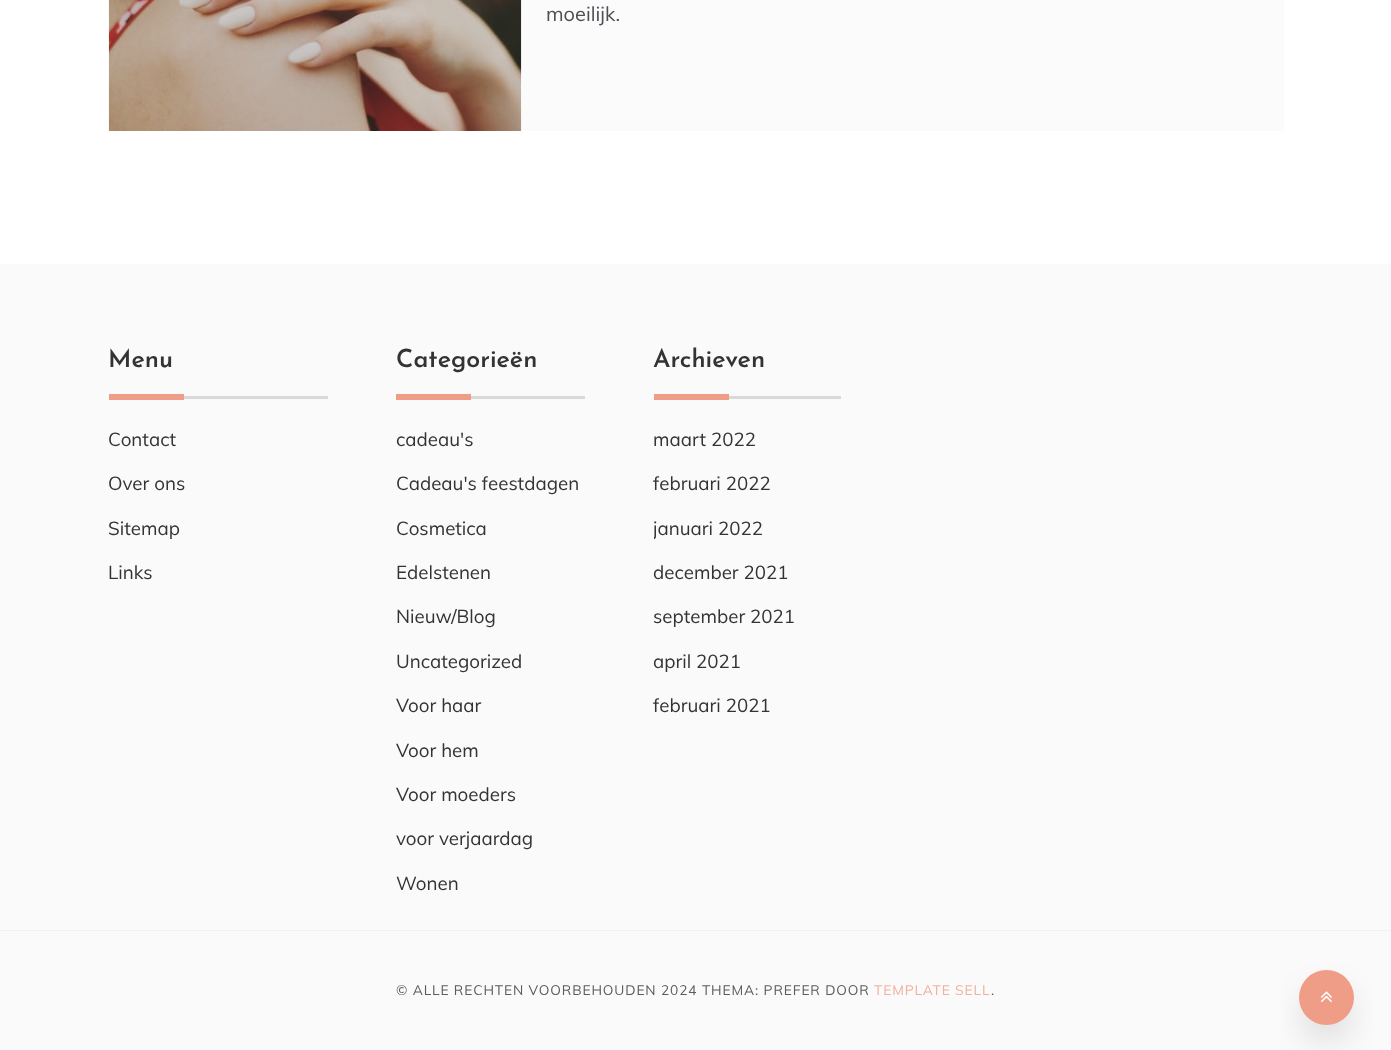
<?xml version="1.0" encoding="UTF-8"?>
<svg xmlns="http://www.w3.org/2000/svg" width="1391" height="1050">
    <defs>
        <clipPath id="clip1"><rect x="654" y="326" width="187" height="395"/></clipPath>
        <filter id="blur1" x="-50%" y="-200%" width="200%" height="500%"><feGaussianBlur stdDeviation="17.5"/></filter>
    </defs>
    <rect width="100%" height="100%" fill="#FFFFFF"/>
    <rect x="521" y="0" width="763" height="131" fill="#FBFBFB"/>
    <image x="108" y="0" width="414" height="131" href="img_01.png"/>
    <text x="546" y="21" font-family="Muli" font-size="20" fill="#4C4F53">moeilijk.</text>
    <rect x="0" y="264" width="1391" height="786" fill="#FAFAFA"/>
    <rect x="184" y="396" width="144" height="3" fill="#D9D9D9"/>
    <text x="108" y="367" font-family="Josefin Sans" font-size="25" font-weight="600" fill="#333333">Menu</text>
    <rect x="109" y="394" width="75" height="6" fill="#EF9D87"/>
    <text x="108" y="446" font-family="Muli" font-size="18.75" fill="#333333">Contact</text>
    <text x="108" y="490" font-family="Muli" font-size="18.75" fill="#333333">Over ons</text>
    <text x="108" y="535" font-family="Muli" font-size="18.75" fill="#333333">Sitemap</text>
    <text x="108" y="579" font-family="Muli" font-size="18.75" fill="#333333">Links</text>
    <rect x="471" y="396" width="114" height="3" fill="#D9D9D9"/>
    <text x="396" y="367" font-family="Josefin Sans" font-size="25" font-weight="600" fill="#333333">Categorieën</text>
    <rect x="396" y="394" width="75" height="6" fill="#EF9D87"/>
    <text x="396" y="446" font-family="Muli" font-size="18.75" fill="#333333">cadeau's</text>
    <text x="396" y="490" font-family="Muli" font-size="18.75" fill="#333333">Cadeau's feestdagen</text>
    <text x="396" y="535" font-family="Muli" font-size="18.75" fill="#333333">Cosmetica</text>
    <text x="396" y="579" font-family="Muli" font-size="18.75" fill="#333333">Edelstenen</text>
    <text x="396" y="623" font-family="Muli" font-size="18.75" fill="#333333">Nieuw/Blog</text>
    <text x="396" y="668" font-family="Muli" font-size="18.75" fill="#333333">Uncategorized</text>
    <text x="396" y="712" font-family="Muli" font-size="18.75" fill="#333333">Voor haar</text>
    <text x="396" y="757" font-family="Muli" font-size="18.75" fill="#333333">Voor hem</text>
    <text x="396" y="801" font-family="Muli" font-size="18.75" fill="#333333">Voor moeders</text>
    <text x="396" y="845" font-family="Muli" font-size="18.75" fill="#333333">voor verjaardag</text>
    <text x="396" y="890" font-family="Muli" font-size="18.75" fill="#333333">Wonen</text>
    <rect x="729" y="396" width="112" height="3" fill="#D9D9D9"/>
    <text x="653" y="367" font-family="Josefin Sans" font-size="25" font-weight="600" fill="#333333">Archieven</text>
    <rect x="654" y="394" width="75" height="6" fill="#EF9D87"/>
    <text x="653" y="446" font-family="Muli" font-size="18.75" fill="#333333">maart 2022</text>
    <text x="653" y="490" font-family="Muli" font-size="18.75" fill="#333333">februari 2022</text>
    <g clip-path="url(#clip1)">
        <text x="653" y="535" font-family="Muli" font-size="18.75" fill="#333333">januari 2022</text>
    </g>
    <text x="653" y="579" font-family="Muli" font-size="18.75" fill="#333333">december 2021</text>
    <text x="653" y="623" font-family="Muli" font-size="18.75" fill="#333333">september 2021</text>
    <text x="653" y="668" font-family="Muli" font-size="18.75" fill="#333333">april 2021</text>
    <text x="653" y="712" font-family="Muli" font-size="18.75" fill="#333333">februari 2021</text>
    <rect x="0" y="930" width="1391" height="1" fill="#F1F1F1"/>
    <text x="396" y="995" font-family="Muli" font-size="13.75" letter-spacing="0.88" fill="#5B5B5B">© ALLE RECHTEN VOORBEHOUDEN 2024 THEMA: PREFER DOOR</text>
    <text x="874" y="995" font-family="Muli" font-size="13.75" letter-spacing="0.88" fill="#F1B09E">TEMPLATE SELL</text>
    <text x="991" y="995" font-family="Muli" font-size="13.75" letter-spacing="0.88" fill="#5B5B5B">.</text>
    <rect x="1304" y="993" width="45" height="45" rx="22.5" fill="#0E1114" fill-opacity="0.15" filter="url(#blur1)"/>
    <circle cx="1326.5" cy="997.5" r="27.5" fill="#EF9D87"/>
    <image x="1320" y="991" width="12" height="12" href="img_02.png"/>
</svg>
